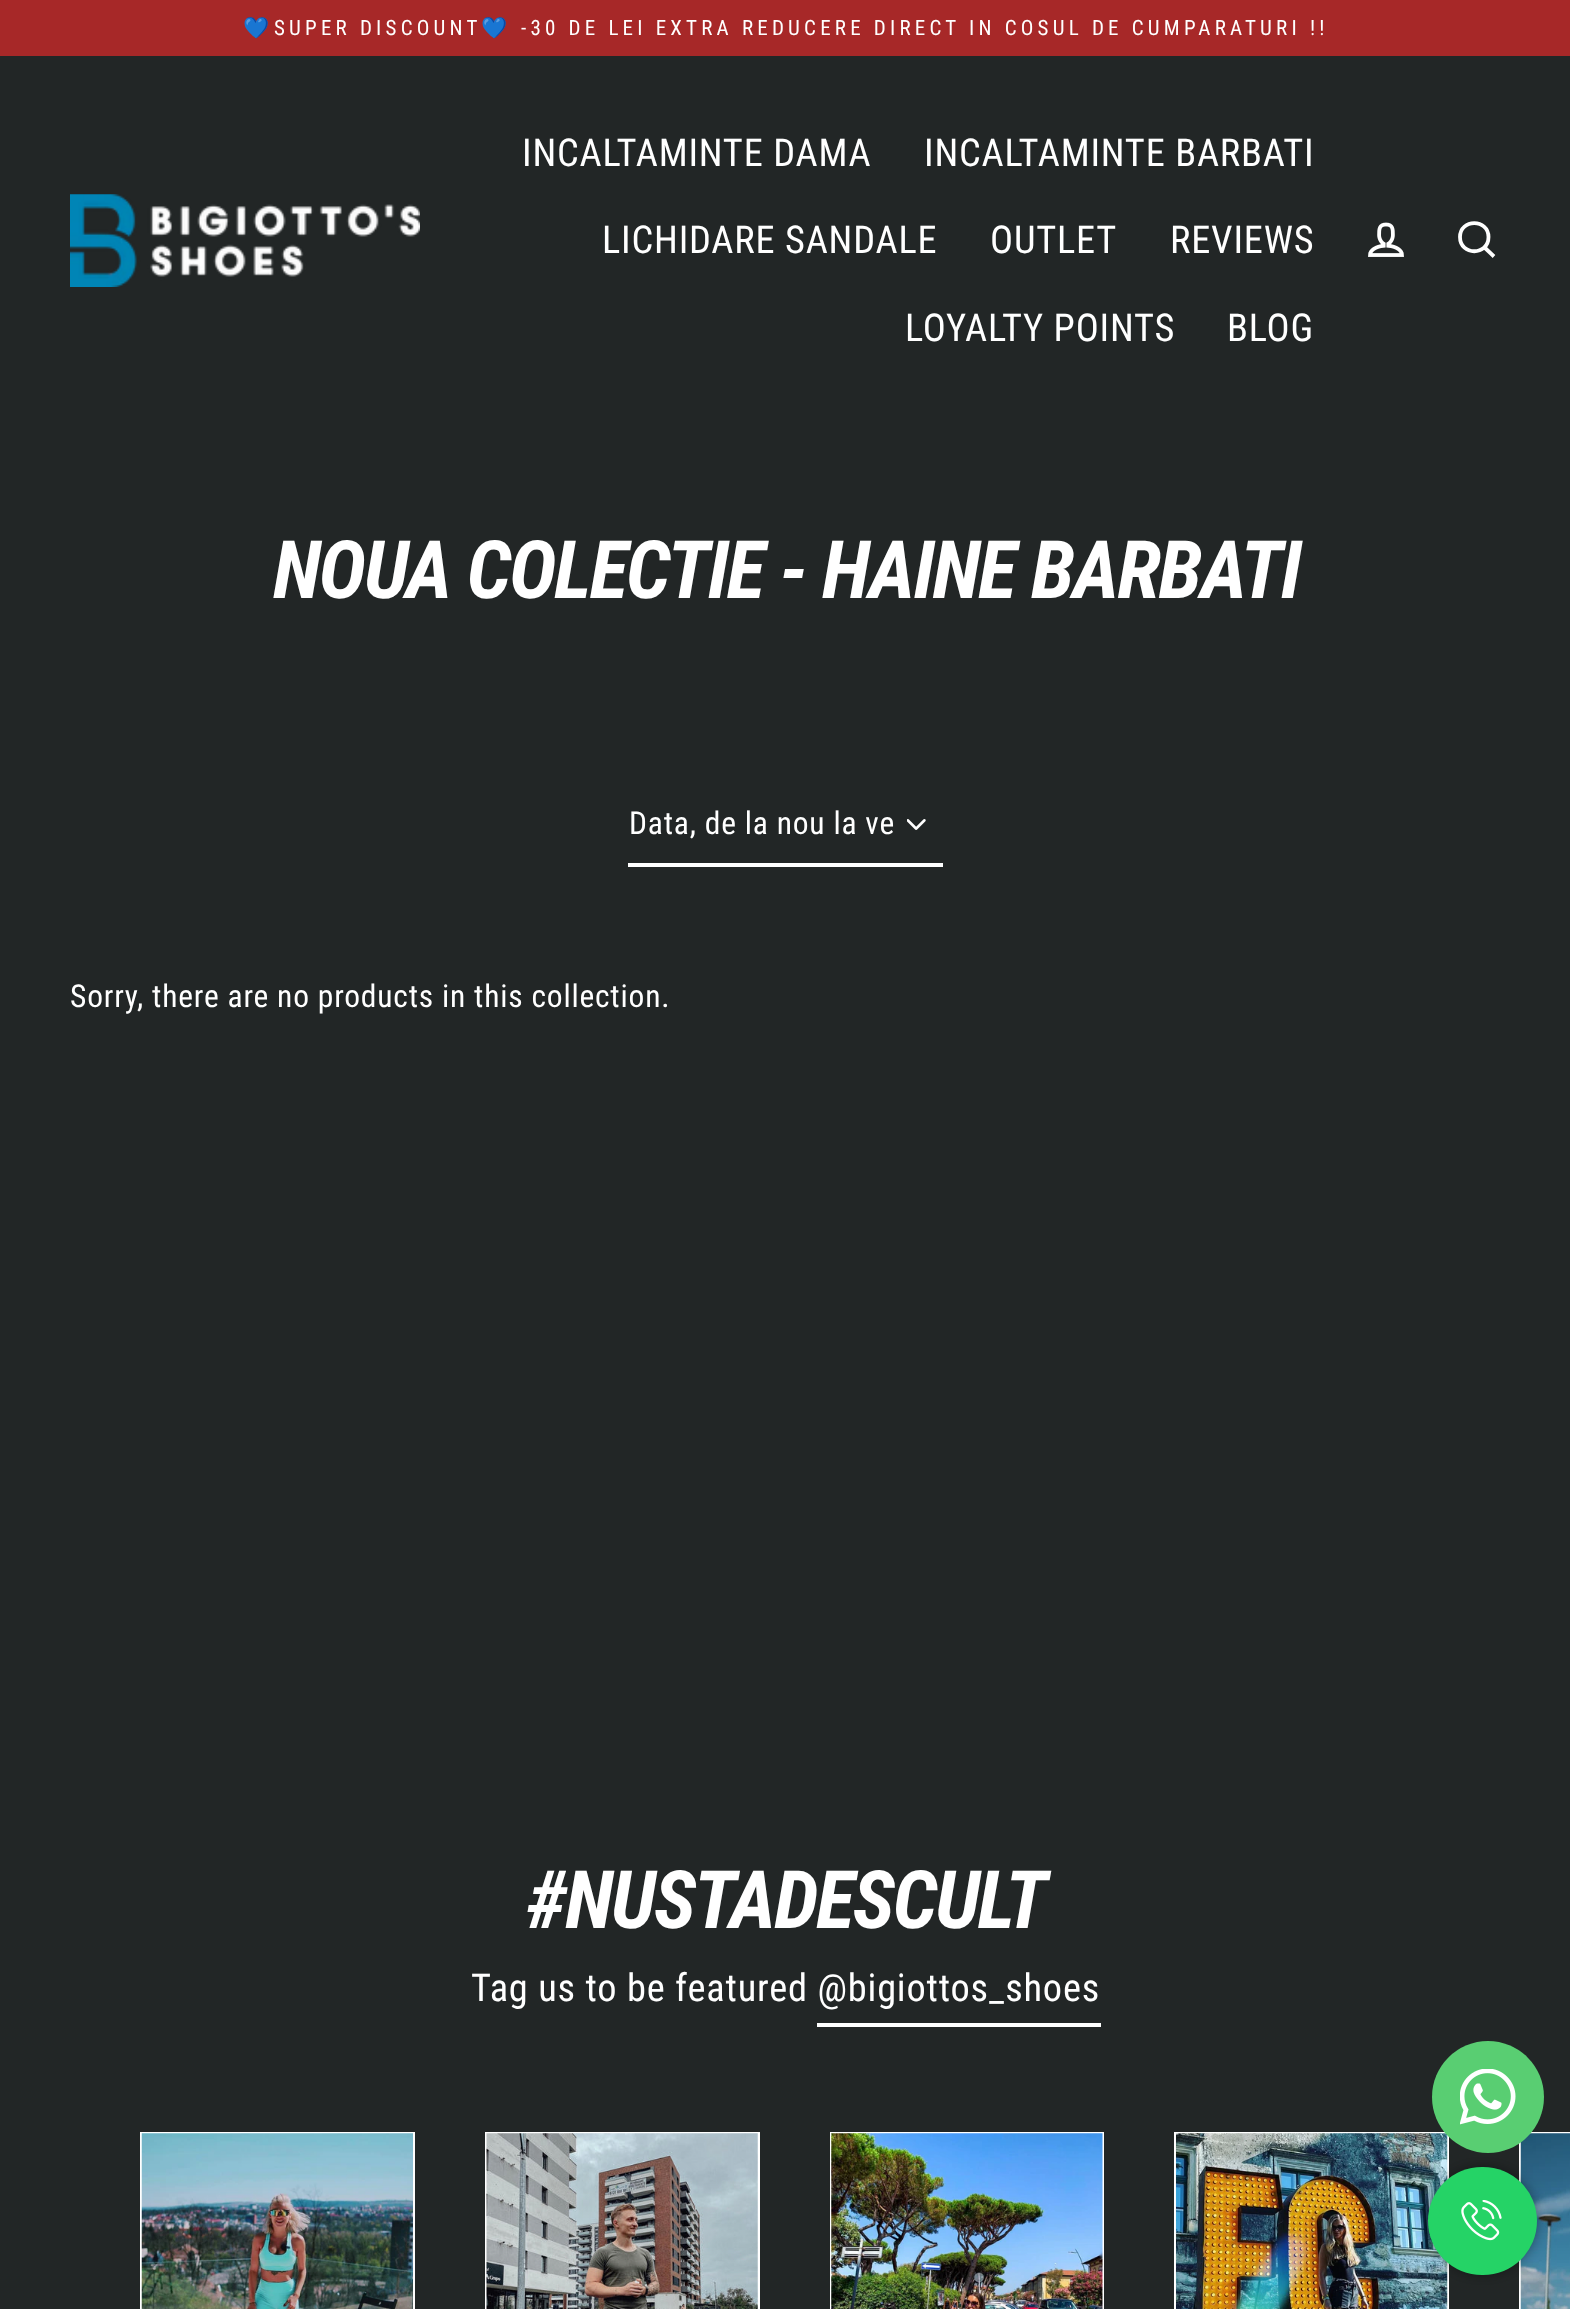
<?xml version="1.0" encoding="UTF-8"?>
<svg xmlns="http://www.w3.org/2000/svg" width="1570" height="2309">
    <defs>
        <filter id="blur1" x="-50%" y="-200%" width="200%" height="500%"><feGaussianBlur stdDeviation="9"/></filter>
    </defs>
    <rect width="100%" height="100%" fill="#222626"/>
    <rect x="0" y="0" width="1570" height="56" fill="#A72828"/>
    <text x="243" y="35" font-family="Noto Color Emoji" font-size="21" letter-spacing="4.2" fill="#FFFFFF">💙</text>
    <text x="274" y="35" font-family="Roboto Condensed" font-size="21" letter-spacing="4.2" fill="#FFFFFF">SUPER DISCOUNT</text>
    <text x="481" y="35" font-family="Noto Color Emoji" font-size="21" letter-spacing="4.2" fill="#FFFFFF">💙</text>
    <text x="521" y="35" font-family="Roboto Condensed" font-size="21" letter-spacing="4.2" fill="#FFFFFF">-30 DE LEI EXTRA REDUCERE DIRECT IN COSUL DE CUMPARATURI !!</text>
    <image x="70" y="194" width="350" height="93" href="img_01.png"/>
    <text x="522" y="166" font-family="Roboto Condensed" font-size="38.4" letter-spacing="0.8" fill="#FFFFFF">INCALTAMINTE DAMA</text>
    <text x="924" y="166" font-family="Roboto Condensed" font-size="38.4" letter-spacing="0.8" fill="#FFFFFF">INCALTAMINTE BARBATI</text>
    <text x="602" y="253" font-family="Roboto Condensed" font-size="38.4" letter-spacing="0.8" fill="#FFFFFF">LICHIDARE SANDALE</text>
    <text x="990" y="253" font-family="Roboto Condensed" font-size="38.4" letter-spacing="0.8" fill="#FFFFFF">OUTLET</text>
    <text x="1170" y="253" font-family="Roboto Condensed" font-size="38.4" letter-spacing="0.8" fill="#FFFFFF">REVIEWS</text>
    <text x="905" y="341" font-family="Roboto Condensed" font-size="38.4" letter-spacing="0.8" fill="#FFFFFF">LOYALTY POINTS</text>
    <text x="1227" y="341" font-family="Roboto Condensed" font-size="38.4" letter-spacing="0.8" fill="#FFFFFF">BLOG</text>
    <image x="1368" y="222" width="36" height="35" href="img_02.png"/>
    <path d="M 1488.5 237 C 1488.5 256 1460 256 1460 237 C 1460 218.5 1488.5 218.5 1488.5 237 Z M 1494 256.5 L 1484.5 247.5" fill="none" stroke="#FFFFFF" stroke-width="3.8"/>
    <text x="273" y="598" font-family="Roboto Condensed" font-size="80.5" font-weight="700" font-style="italic" letter-spacing="-2" fill="#FFFFFF">NOUA COLECTIE - HAINE BARBATI</text>
    <image x="907" y="819" width="19" height="11" href="img_03.png"/>
    <rect x="628" y="863" width="315" height="4" fill="#FFFFFF"/>
    <text x="629" y="834" font-family="Roboto Condensed" font-size="31.5" letter-spacing="0.8" fill="#FFFFFF">Data, de la nou la ve</text>
    <text x="70" y="1007" font-family="Roboto Condensed" font-size="31.5" letter-spacing="0.8" fill="#FFFFFF">Sorry, there are no products in this collection.</text>
    <text x="526" y="1928" font-family="Roboto Condensed" font-size="80.5" font-weight="700" font-style="italic" letter-spacing="-2" fill="#FFFFFF">#NUSTADESCULT</text>
    <text x="471" y="2001" font-family="Roboto Condensed" font-size="38.4" letter-spacing="0.8" fill="#FFFFFF">Tag us to be featured @bigiottos_shoes</text>
    <rect x="817" y="2023" width="284" height="4" fill="#FFFFFF"/>
    <rect x="140" y="2132" width="275" height="177" fill="#FFFFFF"/>
    <image x="141" y="2133" width="272" height="176" href="img_04.png"/>
    <rect x="485" y="2132" width="275" height="177" fill="#FFFFFF"/>
    <image x="486" y="2133" width="272" height="176" href="img_05.png"/>
    <rect x="830" y="2132" width="274" height="177" fill="#FFFFFF"/>
    <image x="831" y="2133" width="272" height="176" href="img_06.png"/>
    <rect x="1174" y="2132" width="275" height="177" fill="#FFFFFF"/>
    <image x="1176" y="2133" width="272" height="176" href="img_07.png"/>
    <rect x="1519" y="2132" width="51" height="177" fill="#FFFFFF"/>
    <image x="1520" y="2133" width="50" height="176" href="img_08.png"/>
    <rect x="1435" y="2174" width="95" height="94" rx="47" fill="#000000" filter="url(#blur1)"/>
    <circle cx="1488" cy="2097" r="56" fill="#59CE72"/>
    <image x="1460" y="2069" width="56" height="56" href="img_09.png"/>
    <rect x="1428" y="2167" width="109" height="108" rx="54" fill="#25D366"/>
    <image x="1461" y="2200" width="41" height="41" href="img_10.png"/>
</svg>
